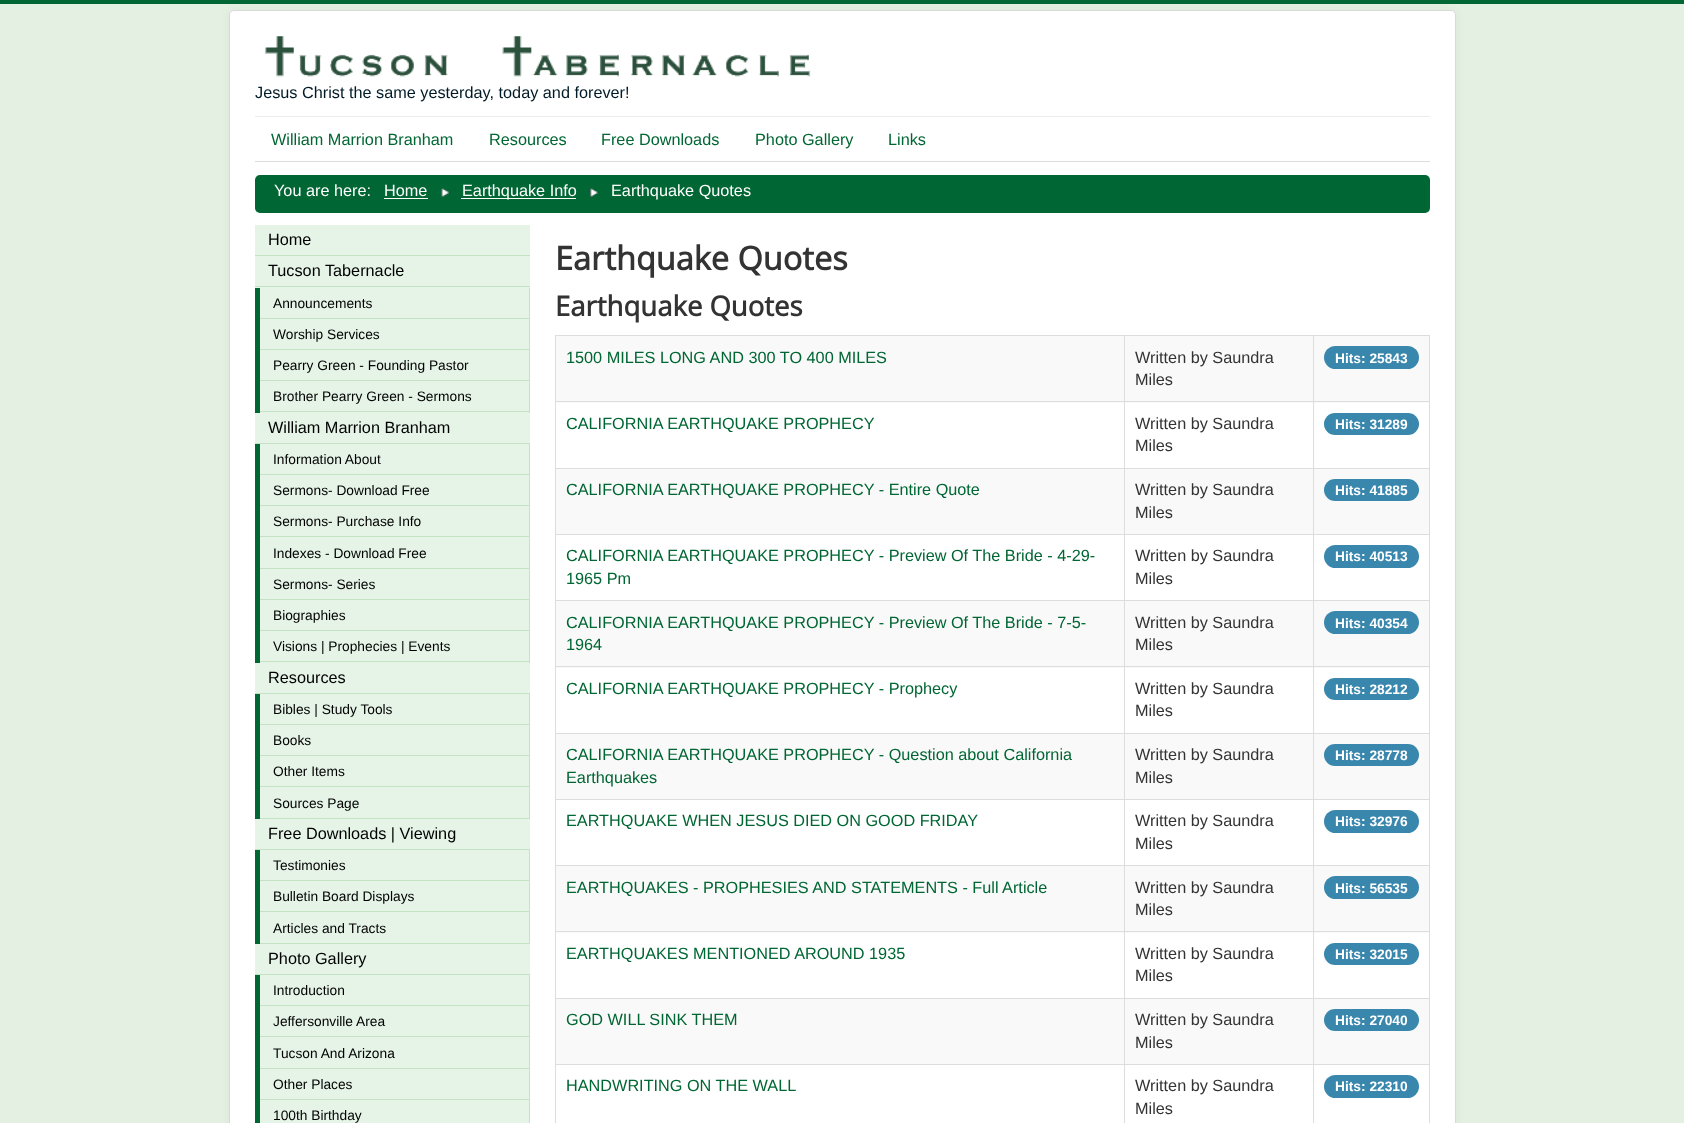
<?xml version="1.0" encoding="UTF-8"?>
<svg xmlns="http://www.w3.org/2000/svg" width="1684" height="1123">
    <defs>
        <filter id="blur1" x="-50%" y="-200%" width="200%" height="500%"><feGaussianBlur stdDeviation="4"/></filter>
    </defs>
    <rect width="100%" height="100%" fill="#E4F1E2"/>
    <rect x="0" y="0" width="1684" height="4" fill="#006633"/>
    <rect x="229" y="10" width="1227" height="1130" rx="5" fill="#000000" fill-opacity="0.05" filter="url(#blur1)"/>
    <rect x="229" y="10" width="1227" height="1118" rx="5" fill="#FFFFFF"/>
    <rect x="229.5" y="10.5" width="1226" height="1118" rx="4.5" fill="none" stroke="#000000" stroke-opacity="0.15"/>
    <image x="264" y="36" width="547" height="41" href="img_01.png"/>
    <text x="255" y="98" font-family="Liberation Sans" font-size="16.25" fill="#001A27">Jesus Christ the same yesterday, today and forever!</text>
    <rect x="255" y="116" width="1175" height="1" fill="#ECECEC"/>
    <rect x="255" y="161" width="1175" height="1" fill="#DDDDDD"/>
    <text x="271" y="145" font-family="Liberation Sans" font-size="16.25" fill="#006633">William Marrion Branham</text>
    <text x="489" y="145" font-family="Liberation Sans" font-size="16.25" fill="#006633">Resources</text>
    <text x="601" y="145" font-family="Liberation Sans" font-size="16.25" fill="#006633">Free Downloads</text>
    <text x="755" y="145" font-family="Liberation Sans" font-size="16.25" fill="#006633">Photo Gallery</text>
    <text x="888" y="145" font-family="Liberation Sans" font-size="16.25" fill="#006633">Links</text>
    <rect x="255" y="175" width="1175" height="38" rx="5" fill="#006633"/>
    <text x="274" y="196" font-family="Liberation Sans" font-size="16.25" fill="#FFFFFF">You are here:</text>
    <text x="384" y="196" font-family="Liberation Sans" font-size="16.25" fill="#FFFFFF">Home</text>
    <rect x="384" y="198" width="44" height="1" fill="#FFFFFF"/>
    <image x="441" y="188" width="9" height="10" href="img_02.png"/>
    <rect x="461" y="198" width="115" height="1" fill="#FFFFFF"/>
    <text x="462" y="196" font-family="Liberation Sans" font-size="16.25" fill="#FFFFFF">Earthquake Info</text>
    <image x="589" y="188" width="10" height="10" href="img_03.png"/>
    <text x="611" y="196" font-family="Liberation Sans" font-size="16.25" fill="#FFFFFF">Earthquake Quotes</text>
    <rect x="255" y="225" width="275" height="30" fill="#E5F4E7"/>
    <rect x="255" y="255" width="275" height="1" fill="#C4E3C4"/>
    <text x="268" y="245" font-family="Liberation Sans" font-size="16.25" fill="#000000">Home</text>
    <rect x="255" y="256" width="275" height="32" fill="#E5F4E7"/>
    <rect x="255" y="286" width="275" height="1" fill="#C4E3C4"/>
    <text x="268" y="276" font-family="Liberation Sans" font-size="16.25" fill="#000000">Tucson Tabernacle</text>
    <rect x="529" y="288" width="1" height="125" fill="#C4E3C4"/>
    <rect x="255" y="288" width="5" height="125" fill="#006633"/>
    <rect x="260" y="288" width="269" height="30" fill="#E5F4E7"/>
    <rect x="260" y="318" width="269" height="1" fill="#C4E3C4"/>
    <text x="273" y="308" font-family="Liberation Sans" font-size="13.75" fill="#000000">Announcements</text>
    <rect x="260" y="319" width="269" height="30" fill="#E5F4E7"/>
    <rect x="260" y="349" width="269" height="1" fill="#C4E3C4"/>
    <text x="273" y="339" font-family="Liberation Sans" font-size="13.75" fill="#000000">Worship Services</text>
    <rect x="260" y="350" width="269" height="30" fill="#E5F4E7"/>
    <rect x="260" y="380" width="269" height="1" fill="#C4E3C4"/>
    <text x="273" y="370" font-family="Liberation Sans" font-size="13.75" fill="#000000">Pearry Green - Founding Pastor</text>
    <rect x="260" y="381" width="269" height="32" fill="#E5F4E7"/>
    <rect x="260" y="411" width="269" height="1" fill="#C4E3C4"/>
    <text x="273" y="401" font-family="Liberation Sans" font-size="13.75" fill="#000000">Brother Pearry Green - Sermons</text>
    <rect x="255" y="413" width="275" height="30" fill="#E5F4E7"/>
    <rect x="255" y="443" width="275" height="1" fill="#C4E3C4"/>
    <text x="268" y="433" font-family="Liberation Sans" font-size="16.25" fill="#000000">William Marrion Branham</text>
    <rect x="529" y="444" width="1" height="219" fill="#C4E3C4"/>
    <rect x="255" y="444" width="5" height="219" fill="#006633"/>
    <rect x="260" y="444" width="269" height="30" fill="#E5F4E7"/>
    <rect x="260" y="474" width="269" height="1" fill="#C4E3C4"/>
    <text x="273" y="464" font-family="Liberation Sans" font-size="13.75" fill="#000000">Information About</text>
    <rect x="260" y="475" width="269" height="30" fill="#E5F4E7"/>
    <rect x="260" y="505" width="269" height="1" fill="#C4E3C4"/>
    <text x="273" y="495" font-family="Liberation Sans" font-size="13.75" fill="#000000">Sermons- Download Free</text>
    <rect x="260" y="506" width="269" height="62" fill="#E5F4E7"/>
    <rect x="260" y="536" width="269" height="1" fill="#C4E3C4"/>
    <text x="273" y="526" font-family="Liberation Sans" font-size="13.75" fill="#000000">Sermons- Purchase Info</text>
    <rect x="260" y="568" width="269" height="1" fill="#C4E3C4"/>
    <text x="273" y="558" font-family="Liberation Sans" font-size="13.75" fill="#000000">Indexes - Download Free</text>
    <rect x="260" y="569" width="269" height="30" fill="#E5F4E7"/>
    <rect x="260" y="599" width="269" height="1" fill="#C4E3C4"/>
    <text x="273" y="589" font-family="Liberation Sans" font-size="13.75" fill="#000000">Sermons- Series</text>
    <rect x="260" y="600" width="269" height="30" fill="#E5F4E7"/>
    <rect x="260" y="630" width="269" height="1" fill="#C4E3C4"/>
    <text x="273" y="620" font-family="Liberation Sans" font-size="13.75" fill="#000000">Biographies</text>
    <rect x="260" y="631" width="269" height="32" fill="#E5F4E7"/>
    <rect x="260" y="661" width="269" height="1" fill="#C4E3C4"/>
    <text x="273" y="651" font-family="Liberation Sans" font-size="13.75" fill="#000000">Visions | Prophecies | Events</text>
    <rect x="255" y="663" width="275" height="30" fill="#E5F4E7"/>
    <rect x="255" y="693" width="275" height="1" fill="#C4E3C4"/>
    <text x="268" y="683" font-family="Liberation Sans" font-size="16.25" fill="#000000">Resources</text>
    <rect x="529" y="694" width="1" height="125" fill="#C4E3C4"/>
    <rect x="255" y="694" width="5" height="125" fill="#006633"/>
    <rect x="260" y="694" width="269" height="30" fill="#E5F4E7"/>
    <rect x="260" y="724" width="269" height="1" fill="#C4E3C4"/>
    <text x="273" y="714" font-family="Liberation Sans" font-size="13.75" fill="#000000">Bibles | Study Tools</text>
    <rect x="260" y="725" width="269" height="30" fill="#E5F4E7"/>
    <rect x="260" y="755" width="269" height="1" fill="#C4E3C4"/>
    <text x="273" y="745" font-family="Liberation Sans" font-size="13.75" fill="#000000">Books</text>
    <rect x="260" y="756" width="269" height="62" fill="#E5F4E7"/>
    <rect x="260" y="786" width="269" height="1" fill="#C4E3C4"/>
    <text x="273" y="776" font-family="Liberation Sans" font-size="13.75" fill="#000000">Other Items</text>
    <rect x="260" y="818" width="269" height="1" fill="#C4E3C4"/>
    <text x="273" y="808" font-family="Liberation Sans" font-size="13.75" fill="#000000">Sources Page</text>
    <rect x="255" y="819" width="275" height="30" fill="#E5F4E7"/>
    <rect x="255" y="849" width="275" height="1" fill="#C4E3C4"/>
    <text x="268" y="839" font-family="Liberation Sans" font-size="16.25" fill="#000000">Free Downloads | Viewing</text>
    <rect x="529" y="850" width="1" height="94" fill="#C4E3C4"/>
    <rect x="255" y="850" width="5" height="94" fill="#006633"/>
    <rect x="260" y="850" width="269" height="30" fill="#E5F4E7"/>
    <rect x="260" y="880" width="269" height="1" fill="#C4E3C4"/>
    <text x="273" y="870" font-family="Liberation Sans" font-size="13.75" fill="#000000">Testimonies</text>
    <rect x="260" y="881" width="269" height="62" fill="#E5F4E7"/>
    <rect x="260" y="911" width="269" height="1" fill="#C4E3C4"/>
    <text x="273" y="901" font-family="Liberation Sans" font-size="13.75" fill="#000000">Bulletin Board Displays</text>
    <rect x="260" y="943" width="269" height="1" fill="#C4E3C4"/>
    <text x="273" y="933" font-family="Liberation Sans" font-size="13.75" fill="#000000">Articles and Tracts</text>
    <rect x="255" y="944" width="275" height="30" fill="#E5F4E7"/>
    <rect x="255" y="974" width="275" height="1" fill="#C4E3C4"/>
    <text x="268" y="964" font-family="Liberation Sans" font-size="16.25" fill="#000000">Photo Gallery</text>
    <rect x="529" y="975" width="1" height="148" fill="#C4E3C4"/>
    <rect x="255" y="975" width="5" height="148" fill="#006633"/>
    <rect x="260" y="975" width="269" height="30" fill="#E5F4E7"/>
    <rect x="260" y="1005" width="269" height="1" fill="#C4E3C4"/>
    <text x="273" y="995" font-family="Liberation Sans" font-size="13.75" fill="#000000">Introduction</text>
    <rect x="260" y="1006" width="269" height="62" fill="#E5F4E7"/>
    <rect x="260" y="1036" width="269" height="1" fill="#C4E3C4"/>
    <text x="273" y="1026" font-family="Liberation Sans" font-size="13.75" fill="#000000">Jeffersonville Area</text>
    <rect x="260" y="1068" width="269" height="1" fill="#C4E3C4"/>
    <text x="273" y="1058" font-family="Liberation Sans" font-size="13.75" fill="#000000">Tucson And Arizona</text>
    <rect x="260" y="1069" width="269" height="30" fill="#E5F4E7"/>
    <rect x="260" y="1099" width="269" height="1" fill="#C4E3C4"/>
    <text x="273" y="1089" font-family="Liberation Sans" font-size="13.75" fill="#000000">Other Places</text>
    <rect x="260" y="1100" width="269" height="23" fill="#E5F4E7"/>
    <text x="273" y="1120" font-family="Liberation Sans" font-size="13.75" fill="#000000">100th Birthday</text>
    <text x="555" y="270" font-family="Open Sans" font-size="32.5" font-weight="700" fill="#333333">Earthquake Quotes</text>
    <text x="555" y="316" font-family="Open Sans" font-size="27.5" font-weight="700" fill="#333333">Earthquake Quotes</text>
    <rect x="555" y="335" width="875" height="1" fill="#DDDDDD"/>
    <rect x="1429" y="335" width="1" height="788" fill="#DDDDDD"/>
    <rect x="556" y="336" width="568" height="67" fill="#F9F9F9"/>
    <text x="566" y="363" font-family="Liberation Sans" font-size="16.25" fill="#006633">1500 MILES LONG AND 300 TO 400 MILES</text>
    <rect x="1125" y="336" width="188" height="67" fill="#F9F9F9"/>
    <rect x="1314" y="336" width="115" height="67" fill="#F9F9F9"/>
    <rect x="1313" y="401" width="117" height="1" fill="#DDDDDD"/>
    <rect x="1313" y="468" width="117" height="1" fill="#DDDDDD"/>
    <rect x="1313" y="534" width="117" height="1" fill="#DDDDDD"/>
    <rect x="1313" y="600" width="117" height="1" fill="#DDDDDD"/>
    <rect x="1125" y="601" width="188" height="67" fill="#F9F9F9"/>
    <rect x="1314" y="601" width="115" height="67" fill="#F9F9F9"/>
    <rect x="1313" y="666" width="117" height="1" fill="#DDDDDD"/>
    <rect x="1313" y="733" width="117" height="1" fill="#DDDDDD"/>
    <rect x="1313" y="799" width="117" height="1" fill="#DDDDDD"/>
    <rect x="1313" y="865" width="117" height="1" fill="#DDDDDD"/>
    <rect x="1125" y="866" width="188" height="67" fill="#F9F9F9"/>
    <rect x="1314" y="866" width="115" height="67" fill="#F9F9F9"/>
    <rect x="1313" y="931" width="117" height="1" fill="#DDDDDD"/>
    <rect x="1313" y="998" width="117" height="1" fill="#DDDDDD"/>
    <rect x="1313" y="1064" width="117" height="1" fill="#DDDDDD"/>
    <rect x="1313" y="1064" width="1" height="59" fill="#DDDDDD"/>
    <rect x="1124" y="1064" width="190" height="1" fill="#DDDDDD"/>
    <rect x="1313" y="998" width="1" height="67" fill="#DDDDDD"/>
    <rect x="1124" y="998" width="190" height="1" fill="#DDDDDD"/>
    <rect x="1313" y="931" width="1" height="68" fill="#DDDDDD"/>
    <rect x="1124" y="931" width="190" height="1" fill="#DDDDDD"/>
    <rect x="1313" y="865" width="1" height="68" fill="#DDDDDD"/>
    <rect x="1124" y="865" width="190" height="1" fill="#DDDDDD"/>
    <rect x="1313" y="799" width="1" height="67" fill="#DDDDDD"/>
    <rect x="1124" y="799" width="190" height="1" fill="#DDDDDD"/>
    <rect x="1313" y="733" width="1" height="67" fill="#DDDDDD"/>
    <rect x="1124" y="733" width="190" height="1" fill="#DDDDDD"/>
    <rect x="1313" y="666" width="1" height="68" fill="#DDDDDD"/>
    <rect x="1124" y="666" width="190" height="1" fill="#DDDDDD"/>
    <rect x="1313" y="600" width="1" height="68" fill="#DDDDDD"/>
    <rect x="1124" y="600" width="190" height="1" fill="#DDDDDD"/>
    <rect x="1313" y="534" width="1" height="67" fill="#DDDDDD"/>
    <rect x="1124" y="534" width="190" height="1" fill="#DDDDDD"/>
    <rect x="1313" y="468" width="1" height="67" fill="#DDDDDD"/>
    <rect x="1124" y="468" width="190" height="1" fill="#DDDDDD"/>
    <rect x="1313" y="401" width="1" height="68" fill="#DDDDDD"/>
    <rect x="1124" y="401" width="190" height="1" fill="#DDDDDD"/>
    <rect x="556" y="601" width="568" height="67" fill="#F9F9F9"/>
    <rect x="556" y="866" width="568" height="67" fill="#F9F9F9"/>
    <rect x="1124" y="1064" width="1" height="59" fill="#DDDDDD"/>
    <rect x="555" y="1064" width="570" height="1" fill="#DDDDDD"/>
    <rect x="1124" y="998" width="1" height="67" fill="#DDDDDD"/>
    <rect x="555" y="998" width="570" height="1" fill="#DDDDDD"/>
    <rect x="1124" y="931" width="1" height="68" fill="#DDDDDD"/>
    <rect x="555" y="931" width="570" height="1" fill="#DDDDDD"/>
    <rect x="1124" y="865" width="1" height="68" fill="#DDDDDD"/>
    <rect x="555" y="865" width="570" height="1" fill="#DDDDDD"/>
    <rect x="1124" y="799" width="1" height="67" fill="#DDDDDD"/>
    <rect x="555" y="799" width="570" height="1" fill="#DDDDDD"/>
    <rect x="1124" y="733" width="1" height="67" fill="#DDDDDD"/>
    <rect x="555" y="733" width="570" height="1" fill="#DDDDDD"/>
    <rect x="1124" y="666" width="1" height="68" fill="#DDDDDD"/>
    <rect x="555" y="666" width="570" height="1" fill="#DDDDDD"/>
    <rect x="1124" y="600" width="1" height="68" fill="#DDDDDD"/>
    <rect x="555" y="600" width="570" height="1" fill="#DDDDDD"/>
    <rect x="1124" y="534" width="1" height="67" fill="#DDDDDD"/>
    <rect x="555" y="534" width="570" height="1" fill="#DDDDDD"/>
    <rect x="1124" y="468" width="1" height="67" fill="#DDDDDD"/>
    <rect x="555" y="468" width="570" height="1" fill="#DDDDDD"/>
    <rect x="1124" y="401" width="1" height="68" fill="#DDDDDD"/>
    <rect x="555" y="401" width="570" height="1" fill="#DDDDDD"/>
    <rect x="1124" y="335" width="1" height="68" fill="#DDDDDD"/>
    <text font-family="Liberation Sans" font-size="16.25" fill="#333333">
        <tspan x="1135" y="363">Written by Saundra</tspan>
        <tspan x="1135" y="385">Miles</tspan>
    </text>
    <rect x="1313" y="335" width="1" height="68" fill="#DDDDDD"/>
    <rect x="1324" y="346" width="95" height="23" rx="11.5" fill="#3A87AD"/>
    <text x="1335" y="363" font-family="Liberation Sans" font-size="13.75" font-weight="700" fill="#FFFFFF">Hits: 25843</text>
    <rect x="555" y="1064" width="1" height="59" fill="#DDDDDD"/>
    <rect x="555" y="998" width="1" height="67" fill="#DDDDDD"/>
    <rect x="555" y="931" width="1" height="68" fill="#DDDDDD"/>
    <rect x="555" y="865" width="1" height="68" fill="#DDDDDD"/>
    <rect x="555" y="799" width="1" height="67" fill="#DDDDDD"/>
    <rect x="555" y="733" width="1" height="67" fill="#DDDDDD"/>
    <rect x="555" y="666" width="1" height="68" fill="#DDDDDD"/>
    <rect x="555" y="600" width="1" height="68" fill="#DDDDDD"/>
    <rect x="555" y="534" width="1" height="67" fill="#DDDDDD"/>
    <rect x="555" y="468" width="1" height="67" fill="#DDDDDD"/>
    <rect x="555" y="335" width="1" height="134" fill="#DDDDDD"/>
    <text x="566" y="429" font-family="Liberation Sans" font-size="16.25" fill="#006633">CALIFORNIA EARTHQUAKE PROPHECY</text>
    <text font-family="Liberation Sans" font-size="16.25" fill="#333333">
        <tspan x="1135" y="429">Written by Saundra</tspan>
        <tspan x="1135" y="451">Miles</tspan>
    </text>
    <rect x="1324" y="413" width="95" height="22" rx="11" fill="#3A87AD"/>
    <text x="1335" y="429" font-family="Liberation Sans" font-size="13.75" font-weight="700" fill="#FFFFFF">Hits: 31289</text>
    <rect x="556" y="469" width="568" height="65" fill="#F9F9F9"/>
    <text x="566" y="495" font-family="Liberation Sans" font-size="16.25" fill="#006633">CALIFORNIA EARTHQUAKE PROPHECY - Entire Quote</text>
    <rect x="1125" y="469" width="188" height="65" fill="#F9F9F9"/>
    <text font-family="Liberation Sans" font-size="16.25" fill="#333333">
        <tspan x="1135" y="495">Written by Saundra</tspan>
        <tspan x="1135" y="518">Miles</tspan>
    </text>
    <rect x="1314" y="469" width="115" height="65" fill="#F9F9F9"/>
    <rect x="1324" y="479" width="95" height="22" rx="11" fill="#3A87AD"/>
    <text x="1335" y="495" font-family="Liberation Sans" font-size="13.75" font-weight="700" fill="#FFFFFF">Hits: 41885</text>
    <text font-family="Liberation Sans" font-size="16.25" fill="#006633">
        <tspan x="566" y="561">CALIFORNIA EARTHQUAKE PROPHECY - Preview Of The Bride - 4-29-</tspan>
        <tspan x="566" y="584">1965 Pm</tspan>
    </text>
    <text font-family="Liberation Sans" font-size="16.25" fill="#333333">
        <tspan x="1135" y="561">Written by Saundra</tspan>
        <tspan x="1135" y="584">Miles</tspan>
    </text>
    <rect x="1324" y="545" width="95" height="23" rx="11.5" fill="#3A87AD"/>
    <text x="1335" y="561" font-family="Liberation Sans" font-size="13.75" font-weight="700" fill="#FFFFFF">Hits: 40513</text>
    <text font-family="Liberation Sans" font-size="16.25" fill="#006633">
        <tspan x="566" y="628">CALIFORNIA EARTHQUAKE PROPHECY - Preview Of The Bride - 7-5-</tspan>
        <tspan x="566" y="650">1964</tspan>
    </text>
    <text font-family="Liberation Sans" font-size="16.25" fill="#333333">
        <tspan x="1135" y="628">Written by Saundra</tspan>
        <tspan x="1135" y="650">Miles</tspan>
    </text>
    <rect x="1324" y="611" width="95" height="23" rx="11.5" fill="#3A87AD"/>
    <text x="1335" y="628" font-family="Liberation Sans" font-size="13.75" font-weight="700" fill="#FFFFFF">Hits: 40354</text>
    <text x="566" y="694" font-family="Liberation Sans" font-size="16.25" fill="#006633">CALIFORNIA EARTHQUAKE PROPHECY - Prophecy</text>
    <text font-family="Liberation Sans" font-size="16.25" fill="#333333">
        <tspan x="1135" y="694">Written by Saundra</tspan>
        <tspan x="1135" y="716">Miles</tspan>
    </text>
    <rect x="1324" y="678" width="95" height="22" rx="11" fill="#3A87AD"/>
    <text x="1335" y="694" font-family="Liberation Sans" font-size="13.75" font-weight="700" fill="#FFFFFF">Hits: 28212</text>
    <rect x="556" y="734" width="568" height="65" fill="#F9F9F9"/>
    <text font-family="Liberation Sans" font-size="16.25" fill="#006633">
        <tspan x="566" y="760">CALIFORNIA EARTHQUAKE PROPHECY - Question about California</tspan>
        <tspan x="566" y="783">Earthquakes</tspan>
    </text>
    <rect x="1125" y="734" width="188" height="65" fill="#F9F9F9"/>
    <text font-family="Liberation Sans" font-size="16.25" fill="#333333">
        <tspan x="1135" y="760">Written by Saundra</tspan>
        <tspan x="1135" y="783">Miles</tspan>
    </text>
    <rect x="1314" y="734" width="115" height="65" fill="#F9F9F9"/>
    <rect x="1324" y="744" width="95" height="22" rx="11" fill="#3A87AD"/>
    <text x="1335" y="760" font-family="Liberation Sans" font-size="13.75" font-weight="700" fill="#FFFFFF">Hits: 28778</text>
    <text x="566" y="826" font-family="Liberation Sans" font-size="16.25" fill="#006633">EARTHQUAKE WHEN JESUS DIED ON GOOD FRIDAY</text>
    <text font-family="Liberation Sans" font-size="16.25" fill="#333333">
        <tspan x="1135" y="826">Written by Saundra</tspan>
        <tspan x="1135" y="849">Miles</tspan>
    </text>
    <rect x="1324" y="810" width="95" height="23" rx="11.5" fill="#3A87AD"/>
    <text x="1335" y="826" font-family="Liberation Sans" font-size="13.75" font-weight="700" fill="#FFFFFF">Hits: 32976</text>
    <text x="566" y="893" font-family="Liberation Sans" font-size="16.25" fill="#006633">EARTHQUAKES - PROPHESIES AND STATEMENTS - Full Article</text>
    <text font-family="Liberation Sans" font-size="16.25" fill="#333333">
        <tspan x="1135" y="893">Written by Saundra</tspan>
        <tspan x="1135" y="915">Miles</tspan>
    </text>
    <rect x="1324" y="876" width="95" height="23" rx="11.5" fill="#3A87AD"/>
    <text x="1335" y="893" font-family="Liberation Sans" font-size="13.75" font-weight="700" fill="#FFFFFF">Hits: 56535</text>
    <text x="566" y="959" font-family="Liberation Sans" font-size="16.25" fill="#006633">EARTHQUAKES MENTIONED AROUND 1935</text>
    <text font-family="Liberation Sans" font-size="16.25" fill="#333333">
        <tspan x="1135" y="959">Written by Saundra</tspan>
        <tspan x="1135" y="981">Miles</tspan>
    </text>
    <rect x="1324" y="943" width="95" height="22" rx="11" fill="#3A87AD"/>
    <text x="1335" y="959" font-family="Liberation Sans" font-size="13.75" font-weight="700" fill="#FFFFFF">Hits: 32015</text>
    <rect x="556" y="999" width="568" height="65" fill="#F9F9F9"/>
    <text x="566" y="1025" font-family="Liberation Sans" font-size="16.25" fill="#006633">GOD WILL SINK THEM</text>
    <rect x="1125" y="999" width="188" height="65" fill="#F9F9F9"/>
    <text font-family="Liberation Sans" font-size="16.25" fill="#333333">
        <tspan x="1135" y="1025">Written by Saundra</tspan>
        <tspan x="1135" y="1048">Miles</tspan>
    </text>
    <rect x="1314" y="999" width="115" height="65" fill="#F9F9F9"/>
    <rect x="1324" y="1009" width="95" height="22" rx="11" fill="#3A87AD"/>
    <text x="1335" y="1025" font-family="Liberation Sans" font-size="13.75" font-weight="700" fill="#FFFFFF">Hits: 27040</text>
    <text x="566" y="1091" font-family="Liberation Sans" font-size="16.25" fill="#006633">HANDWRITING ON THE WALL</text>
    <text font-family="Liberation Sans" font-size="16.25" fill="#333333">
        <tspan x="1135" y="1091">Written by Saundra</tspan>
        <tspan x="1135" y="1114">Miles</tspan>
    </text>
    <rect x="1324" y="1075" width="95" height="23" rx="11.5" fill="#3A87AD"/>
    <text x="1335" y="1091" font-family="Liberation Sans" font-size="13.75" font-weight="700" fill="#FFFFFF">Hits: 22310</text>
</svg>
